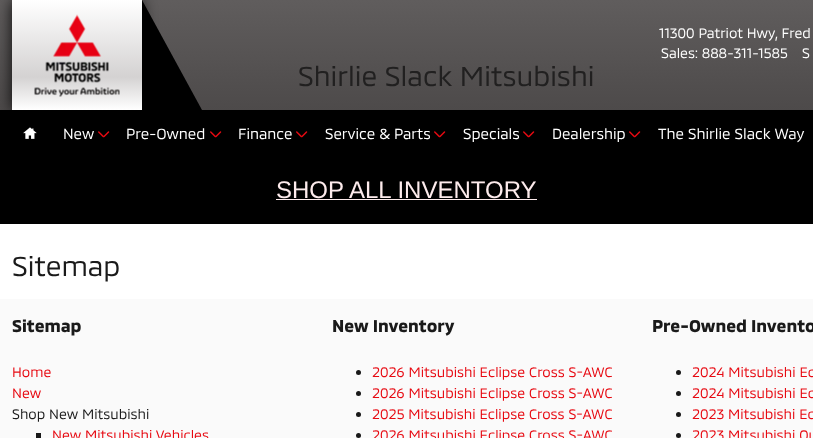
<?xml version="1.0" encoding="UTF-8"?>
<svg xmlns="http://www.w3.org/2000/svg" width="813" height="438">
    <defs>
        <linearGradient id="g1" gradientUnits="userSpaceOnUse" x1="407" y1="0" x2="407" y2="110"><stop offset="0" stop-color="#605D5D"/><stop offset="1" stop-color="#4D4A4A"/></linearGradient>
        <filter id="blur1" x="-50%" y="-200%" width="200%" height="500%"><feGaussianBlur stdDeviation="7.5"/></filter>
        <linearGradient id="g2" gradientUnits="userSpaceOnUse" x1="77" y1="0" x2="77" y2="110"><stop offset="0" stop-color="#FFFFFF"/><stop offset="0.7" stop-color="#D4D2D2"/><stop offset="1" stop-color="#FFFFFF"/></linearGradient>
    </defs>
    <rect width="100%" height="100%" fill="#FAFAFA"/>
    <rect x="0" y="0" width="813" height="110" fill="url(#g1)"/>
    <path d="M 202 110 H 72 V 0 H 142 Z" fill="#000000"/>
    <rect x="0" y="110" width="813" height="114" fill="#000000"/>
    <image x="23" y="127" width="14" height="12" href="img_02.png"/>
    <image x="98" y="131" width="12" height="7" href="img_03.png"/>
    <rect x="12" y="0" width="130" height="110" fill="#000000" fill-opacity="0.9" filter="url(#blur1)"/>
    <rect x="12" y="0" width="130" height="110" fill="url(#g2)"/>
    <image x="34" y="14" width="86" height="83" href="img_01.png"/>
    <text x="659" y="38" font-family="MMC" font-size="14" fill="#FFFFFF">11300 Patriot Hwy</text>
    <text x="775" y="38" font-family="MMC" font-size="14" fill="#FFFFFF">, Fred</text>
    <text x="661" y="58" font-family="MMC" font-size="14" fill="#FFFFFF">Sales: 888-311-1585</text>
    <text x="802" y="58" font-family="MMC" font-size="14" fill="#FFFFFF">S</text>
    <text x="298" y="86" font-family="MMC" font-size="28" fill="#212020">Shirlie Slack Mitsubishi</text>
    <text x="63" y="139" font-family="MMC" font-size="15" fill="#FFFFFF">New</text>
    <text x="126" y="139" font-family="MMC" font-size="15" fill="#FFFFFF">Pre-Owned</text>
    <image x="210" y="131" width="12" height="7" href="img_03.png"/>
    <text x="238" y="139" font-family="MMC" font-size="15" fill="#FFFFFF">Finance</text>
    <image x="296" y="131" width="12" height="7" href="img_03.png"/>
    <text x="325" y="139" font-family="MMC" font-size="15" fill="#FFFFFF">Service &amp; Parts</text>
    <image x="434" y="131" width="12" height="7" href="img_03.png"/>
    <text x="463" y="139" font-family="MMC" font-size="15" fill="#FFFFFF">Specials</text>
    <image x="523" y="131" width="12" height="7" href="img_03.png"/>
    <text x="552" y="139" font-family="MMC" font-size="15" fill="#FFFFFF">Dealership</text>
    <image x="629" y="131" width="12" height="7" href="img_03.png"/>
    <text x="658" y="139" font-family="MMC" font-size="15" fill="#FFFFFF">The Shirlie Slack Way</text>
    <text x="276" y="198" font-family="Liberation Sans" font-size="24" fill="#FDEBEC">SHOP ALL INVENTORY</text>
    <rect x="276" y="199" width="261" height="1" fill="#FDEBEC"/>
    <rect x="0" y="224" width="813" height="75" fill="#FFFFFF"/>
    <text x="12" y="276" font-family="MMC" font-size="28" fill="#1A1A1A">Sitemap</text>
    <text x="12" y="332" font-family="MMC" font-size="17.5" font-weight="700" fill="#1A1A1A">Sitemap</text>
    <text font-family="MMC" font-size="14" fill="#E70911">
        <tspan x="12" y="377">Home</tspan>
        <tspan x="12" y="398">New</tspan>
    </text>
    <text x="12" y="419" font-family="MMC" font-size="14" fill="#1A1A1A">Shop New Mitsubishi</text>
    <rect x="36" y="433" width="5" height="5" fill="#191919"/>
    <text x="52" y="440" font-family="MMC" font-size="14" fill="#E70911">New Mitsubishi Vehicles</text>
    <text x="332" y="332" font-family="MMC" font-size="17.5" font-weight="700" fill="#1A1A1A">New Inventory</text>
    <circle cx="358.5" cy="372.5" r="2.5" fill="#191919"/>
    <text x="372" y="377" font-family="MMC" font-size="14" fill="#E70911">2026 Mitsubishi Eclipse Cross S-AWC</text>
    <circle cx="358.5" cy="393.5" r="2.5" fill="#191919"/>
    <text x="372" y="398" font-family="MMC" font-size="14" fill="#E70911">2026 Mitsubishi Eclipse Cross S-AWC</text>
    <circle cx="358.5" cy="414.5" r="2.5" fill="#191919"/>
    <text x="372" y="419" font-family="MMC" font-size="14" fill="#E70911">2025 Mitsubishi Eclipse Cross S-AWC</text>
    <circle cx="358.5" cy="435.5" r="2.5" fill="#191919"/>
    <text x="372" y="440" font-family="MMC" font-size="14" fill="#E70911">2026 Mitsubishi Eclipse Cross S-AWC</text>
    <text x="652" y="332" font-family="MMC" font-size="17.5" font-weight="700" fill="#1A1A1A">Pre-Owned Invento</text>
    <circle cx="678.5" cy="372.5" r="2.5" fill="#191919"/>
    <text x="692" y="377" font-family="MMC" font-size="14" fill="#E70911">2024 Mitsubishi Ec</text>
    <circle cx="678.5" cy="393.5" r="2.5" fill="#191919"/>
    <text x="692" y="398" font-family="MMC" font-size="14" fill="#E70911">2024 Mitsubishi Ec</text>
    <circle cx="678.5" cy="414.5" r="2.5" fill="#191919"/>
    <text x="692" y="419" font-family="MMC" font-size="14" fill="#E70911">2023 Mitsubishi Ec</text>
    <circle cx="678.5" cy="435.5" r="2.5" fill="#191919"/>
    <text x="692" y="440" font-family="MMC" font-size="14" fill="#E70911">2023 Mitsubishi Ou</text>
</svg>
